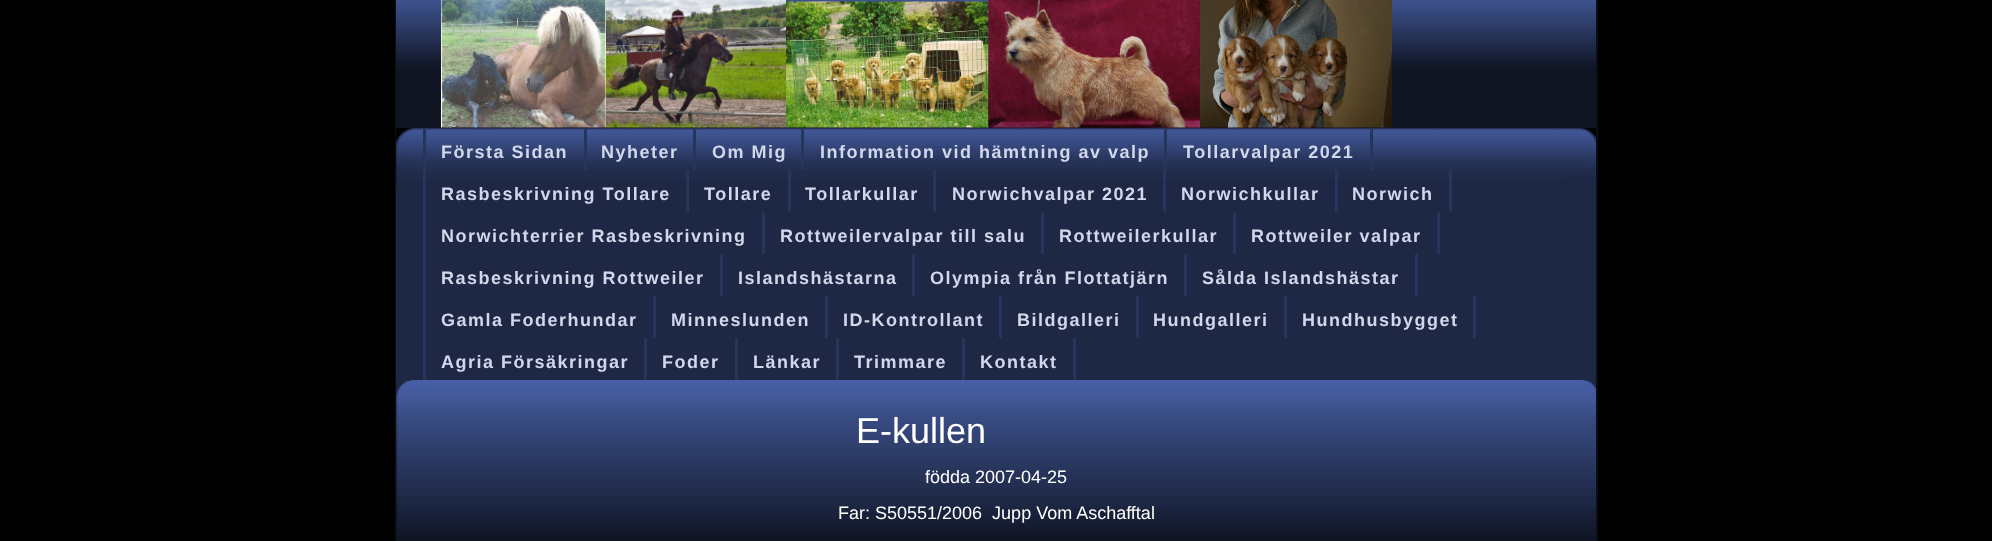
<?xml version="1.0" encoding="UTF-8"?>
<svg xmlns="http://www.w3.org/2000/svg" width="1992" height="541">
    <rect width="100%" height="100%" fill="#000000"/>
    <rect x="1596" y="0" width="2" height="541" fill="#0A0D16"/>
    <rect x="395" y="0" width="1" height="541" fill="#0A0D16"/>
    <rect x="396" y="67" width="1200" height="61" fill="#101524"/>
    <image x="396" y="0" width="1200" height="67" href="img_01.png"/>
    <image x="441" y="0" width="165" height="128" href="img_02.png"/>
    <image x="606" y="0" width="180" height="128" href="img_03.png"/>
    <image x="786" y="1" width="203" height="127" href="img_04.png"/>
    <image x="988" y="0" width="212" height="128" href="img_05.png"/>
    <image x="1200" y="0" width="192" height="128" href="img_06.png"/>
    <rect x="396" y="187" width="1200" height="193" fill="#1E2845"/>
    <image x="396" y="128" width="1200" height="60" href="img_07.png"/>
    <rect x="584" y="128" width="3" height="42" fill="#27345B"/>
    <rect x="423" y="128" width="3" height="252" fill="#27345B"/>
    <text x="441" y="158" font-family="Liberation Sans" font-size="18" font-weight="700" letter-spacing="1.5" fill="#D1D8EB">Första Sidan</text>
    <rect x="693" y="128" width="3" height="42" fill="#27345B"/>
    <text x="601" y="158" font-family="Liberation Sans" font-size="18" font-weight="700" letter-spacing="1.5" fill="#D1D8EB">Nyheter</text>
    <rect x="801" y="128" width="3" height="42" fill="#27345B"/>
    <text x="712" y="158" font-family="Liberation Sans" font-size="18" font-weight="700" letter-spacing="1.5" fill="#D1D8EB">Om Mig</text>
    <rect x="1164" y="128" width="3" height="42" fill="#27345B"/>
    <text x="820" y="158" font-family="Liberation Sans" font-size="18" font-weight="700" letter-spacing="1.5" fill="#D1D8EB">Information vid hämtning av valp</text>
    <rect x="1370" y="128" width="3" height="42" fill="#27345B"/>
    <text x="1183" y="158" font-family="Liberation Sans" font-size="18" font-weight="700" letter-spacing="1.5" fill="#D1D8EB">Tollarvalpar 2021</text>
    <rect x="686" y="170" width="3" height="42" fill="#27345B"/>
    <text x="441" y="200" font-family="Liberation Sans" font-size="18" font-weight="700" letter-spacing="1.5" fill="#D1D8EB">Rasbeskrivning Tollare</text>
    <rect x="788" y="170" width="3" height="42" fill="#27345B"/>
    <text x="704" y="200" font-family="Liberation Sans" font-size="18" font-weight="700" letter-spacing="1.5" fill="#D1D8EB">Tollare</text>
    <rect x="933" y="170" width="3" height="42" fill="#27345B"/>
    <text x="805" y="200" font-family="Liberation Sans" font-size="18" font-weight="700" letter-spacing="1.5" fill="#D1D8EB">Tollarkullar</text>
    <rect x="1163" y="170" width="3" height="42" fill="#27345B"/>
    <text x="952" y="200" font-family="Liberation Sans" font-size="18" font-weight="700" letter-spacing="1.5" fill="#D1D8EB">Norwichvalpar 2021</text>
    <rect x="1335" y="170" width="3" height="42" fill="#27345B"/>
    <text x="1181" y="200" font-family="Liberation Sans" font-size="18" font-weight="700" letter-spacing="1.5" fill="#D1D8EB">Norwichkullar</text>
    <rect x="1449" y="170" width="3" height="42" fill="#27345B"/>
    <text x="1352" y="200" font-family="Liberation Sans" font-size="18" font-weight="700" letter-spacing="1.5" fill="#D1D8EB">Norwich</text>
    <rect x="762" y="212" width="3" height="42" fill="#27345B"/>
    <text x="441" y="242" font-family="Liberation Sans" font-size="18" font-weight="700" letter-spacing="1.5" fill="#D1D8EB">Norwichterrier Rasbeskrivning</text>
    <rect x="1041" y="212" width="3" height="42" fill="#27345B"/>
    <text x="780" y="242" font-family="Liberation Sans" font-size="18" font-weight="700" letter-spacing="1.5" fill="#D1D8EB">Rottweilervalpar till salu</text>
    <rect x="1233" y="212" width="3" height="42" fill="#27345B"/>
    <text x="1059" y="242" font-family="Liberation Sans" font-size="18" font-weight="700" letter-spacing="1.5" fill="#D1D8EB">Rottweilerkullar</text>
    <rect x="1437" y="212" width="3" height="42" fill="#27345B"/>
    <text x="1251" y="242" font-family="Liberation Sans" font-size="18" font-weight="700" letter-spacing="1.5" fill="#D1D8EB">Rottweiler valpar</text>
    <rect x="720" y="254" width="3" height="42" fill="#27345B"/>
    <text x="441" y="284" font-family="Liberation Sans" font-size="18" font-weight="700" letter-spacing="1.5" fill="#D1D8EB">Rasbeskrivning Rottweiler</text>
    <rect x="912" y="254" width="3" height="42" fill="#27345B"/>
    <text x="738" y="284" font-family="Liberation Sans" font-size="18" font-weight="700" letter-spacing="1.5" fill="#D1D8EB">Islandshästarna</text>
    <rect x="1184" y="254" width="3" height="42" fill="#27345B"/>
    <text x="930" y="284" font-family="Liberation Sans" font-size="18" font-weight="700" letter-spacing="1.5" fill="#D1D8EB">Olympia från Flottatjärn</text>
    <rect x="1415" y="254" width="3" height="42" fill="#27345B"/>
    <text x="1202" y="284" font-family="Liberation Sans" font-size="18" font-weight="700" letter-spacing="1.5" fill="#D1D8EB">Sålda Islandshästar</text>
    <rect x="653" y="296" width="3" height="42" fill="#27345B"/>
    <text x="441" y="326" font-family="Liberation Sans" font-size="18" font-weight="700" letter-spacing="1.5" fill="#D1D8EB">Gamla Foderhundar</text>
    <rect x="825" y="296" width="3" height="42" fill="#27345B"/>
    <text x="671" y="326" font-family="Liberation Sans" font-size="18" font-weight="700" letter-spacing="1.5" fill="#D1D8EB">Minneslunden</text>
    <rect x="999" y="296" width="3" height="42" fill="#27345B"/>
    <text x="843" y="326" font-family="Liberation Sans" font-size="18" font-weight="700" letter-spacing="1.5" fill="#D1D8EB">ID-Kontrollant</text>
    <rect x="1136" y="296" width="3" height="42" fill="#27345B"/>
    <text x="1017" y="326" font-family="Liberation Sans" font-size="18" font-weight="700" letter-spacing="1.5" fill="#D1D8EB">Bildgalleri</text>
    <rect x="1284" y="296" width="3" height="42" fill="#27345B"/>
    <text x="1153" y="326" font-family="Liberation Sans" font-size="18" font-weight="700" letter-spacing="1.5" fill="#D1D8EB">Hundgalleri</text>
    <rect x="1473" y="296" width="3" height="42" fill="#27345B"/>
    <text x="1302" y="326" font-family="Liberation Sans" font-size="18" font-weight="700" letter-spacing="1.5" fill="#D1D8EB">Hundhusbygget</text>
    <rect x="644" y="338" width="3" height="42" fill="#27345B"/>
    <text x="441" y="368" font-family="Liberation Sans" font-size="18" font-weight="700" letter-spacing="1.5" fill="#D1D8EB">Agria Försäkringar</text>
    <rect x="735" y="338" width="3" height="42" fill="#27345B"/>
    <text x="662" y="368" font-family="Liberation Sans" font-size="18" font-weight="700" letter-spacing="1.5" fill="#D1D8EB">Foder</text>
    <rect x="836" y="338" width="3" height="42" fill="#27345B"/>
    <text x="753" y="368" font-family="Liberation Sans" font-size="18" font-weight="700" letter-spacing="1.5" fill="#D1D8EB">Länkar</text>
    <rect x="962" y="338" width="3" height="42" fill="#27345B"/>
    <text x="854" y="368" font-family="Liberation Sans" font-size="18" font-weight="700" letter-spacing="1.5" fill="#D1D8EB">Trimmare</text>
    <rect x="1073" y="338" width="3" height="42" fill="#27345B"/>
    <text x="980" y="368" font-family="Liberation Sans" font-size="18" font-weight="700" letter-spacing="1.5" fill="#D1D8EB">Kontakt</text>
    <image x="396" y="380" width="1200" height="161" href="img_08.png"/>
    <text x="856" y="443" font-family="Liberation Sans" font-size="36" fill="#FFFFFF">E-kullen</text>
    <text x="925" y="483" font-family="Liberation Sans" font-size="18" fill="#FFFFFF">födda 2007-04-25</text>
    <text x="838" y="519" font-family="Liberation Sans" font-size="18" fill="#FFFFFF" xml:space="preserve">Far: S50551/2006  Jupp Vom Aschafftal</text>
</svg>
